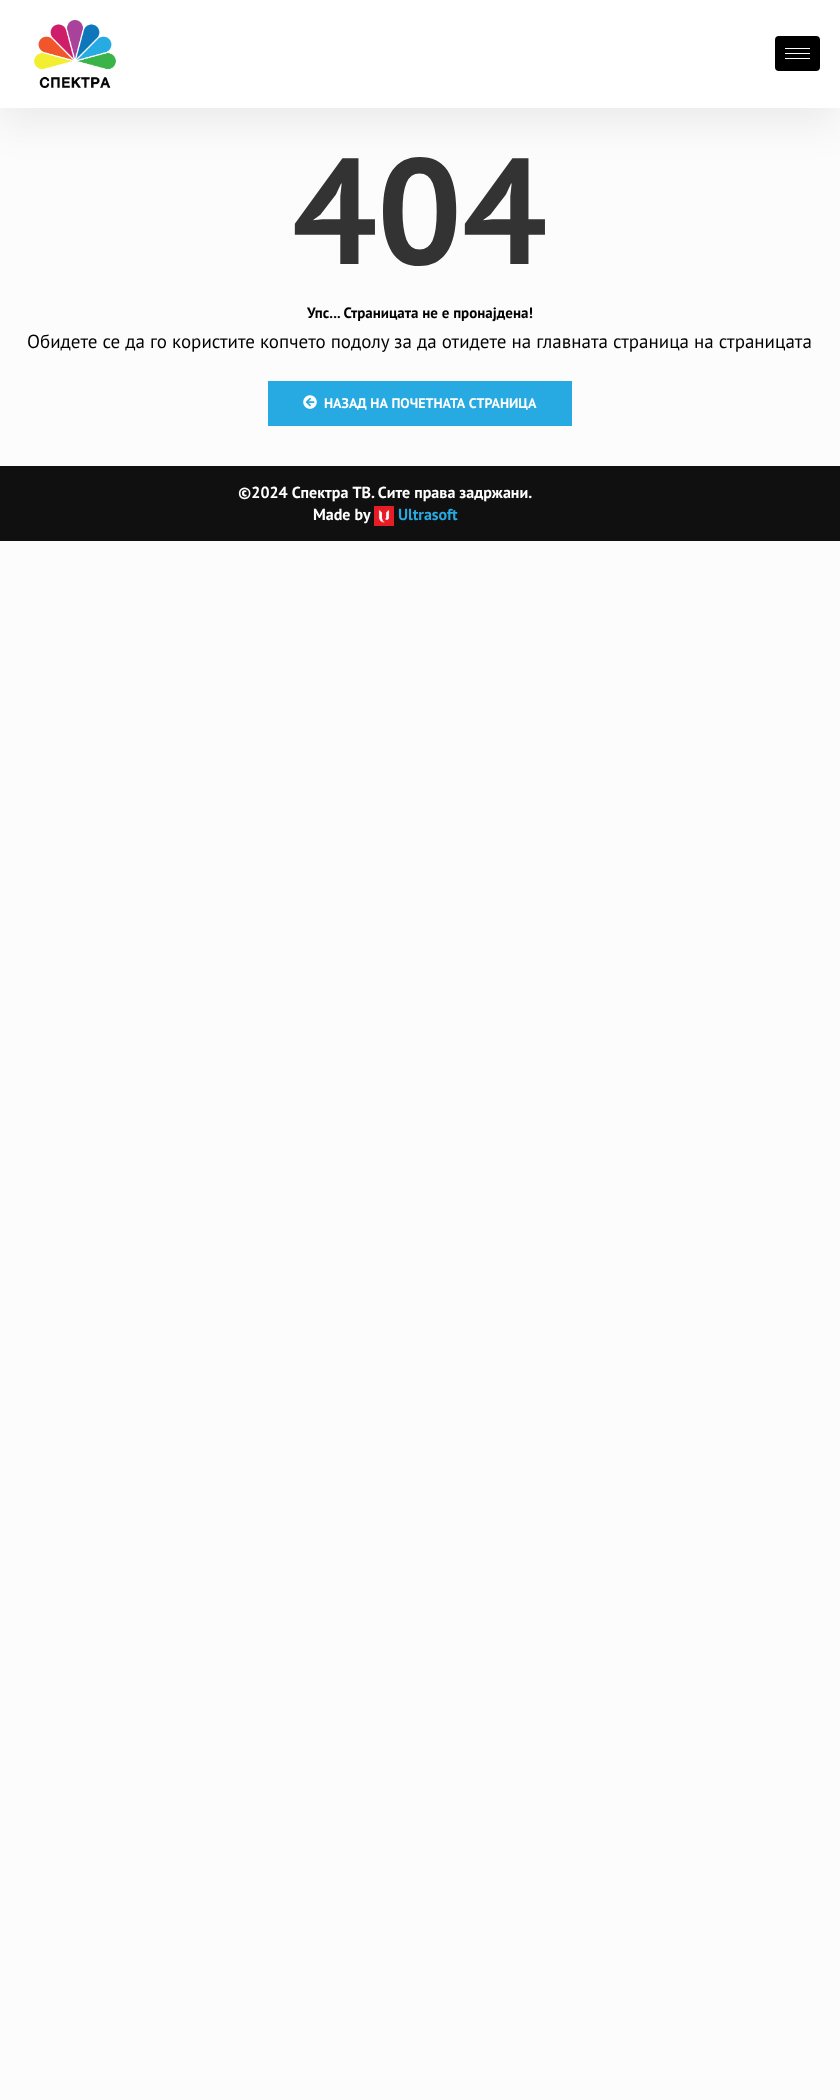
<?xml version="1.0" encoding="UTF-8"?>
<svg xmlns="http://www.w3.org/2000/svg" width="840" height="2100">
    <defs>
        <filter id="blur1" x="-50%" y="-200%" width="200%" height="500%"><feGaussianBlur stdDeviation="20"/></filter>
    </defs>
    <rect width="100%" height="100%" fill="#FCFCFC"/>
    <rect x="-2" y="15" width="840" height="108" fill="#000000" fill-opacity="0.07" filter="url(#blur1)"/>
    <rect x="0" y="0" width="840" height="108" fill="#FFFFFF"/>
    <image x="34" y="20" width="82" height="68" href="img_01.png"/>
    <rect x="775" y="36" width="45" height="35" rx="4" fill="#000000"/>
    <rect x="785" y="48" width="25" height="1" fill="#FFFFFF"/>
    <rect x="785" y="53" width="25" height="1" fill="#FFFFFF"/>
    <rect x="785" y="58" width="25" height="1" fill="#FFFFFF"/>
    <text x="292" y="264" font-family="PT Sans" font-size="150" font-weight="700" fill="#333333">404</text>
    <text x="307" y="318" font-family="PT Sans" font-size="15" font-weight="700" fill="#000000">Упс... Страницата не е пронајдена!</text>
    <text x="27" y="348" font-family="PT Sans" font-size="19" fill="#000000">Обидете се да го користите копчето подолу за да отидете на главната страница на страницата</text>
    <rect x="268" y="381" width="304" height="45" fill="#27AAE1"/>
    <image x="303" y="395" width="14" height="14" href="img_02.png"/>
    <text x="324" y="408" font-family="PT Sans" font-size="14" font-weight="700" fill="#FFFFFF">НАЗАД НА ПОЧЕТНАТА СТРАНИЦА</text>
    <rect x="0" y="466" width="840" height="75" fill="#101010"/>
    <text x="238" y="498" font-family="PT Sans" font-size="16" font-weight="700" fill="#FFFFFF">©2024 Спектра ТВ. Сите права задржани.</text>
    <text x="313" y="520" font-family="PT Sans" font-size="16" font-weight="700" fill="#FFFFFF">Made by</text>
    <image x="374" y="506" width="20" height="20" href="img_03.png"/>
    <text x="398" y="520" font-family="PT Sans" font-size="16" font-weight="700" fill="#27AAE1">Ultrasoft</text>
</svg>
